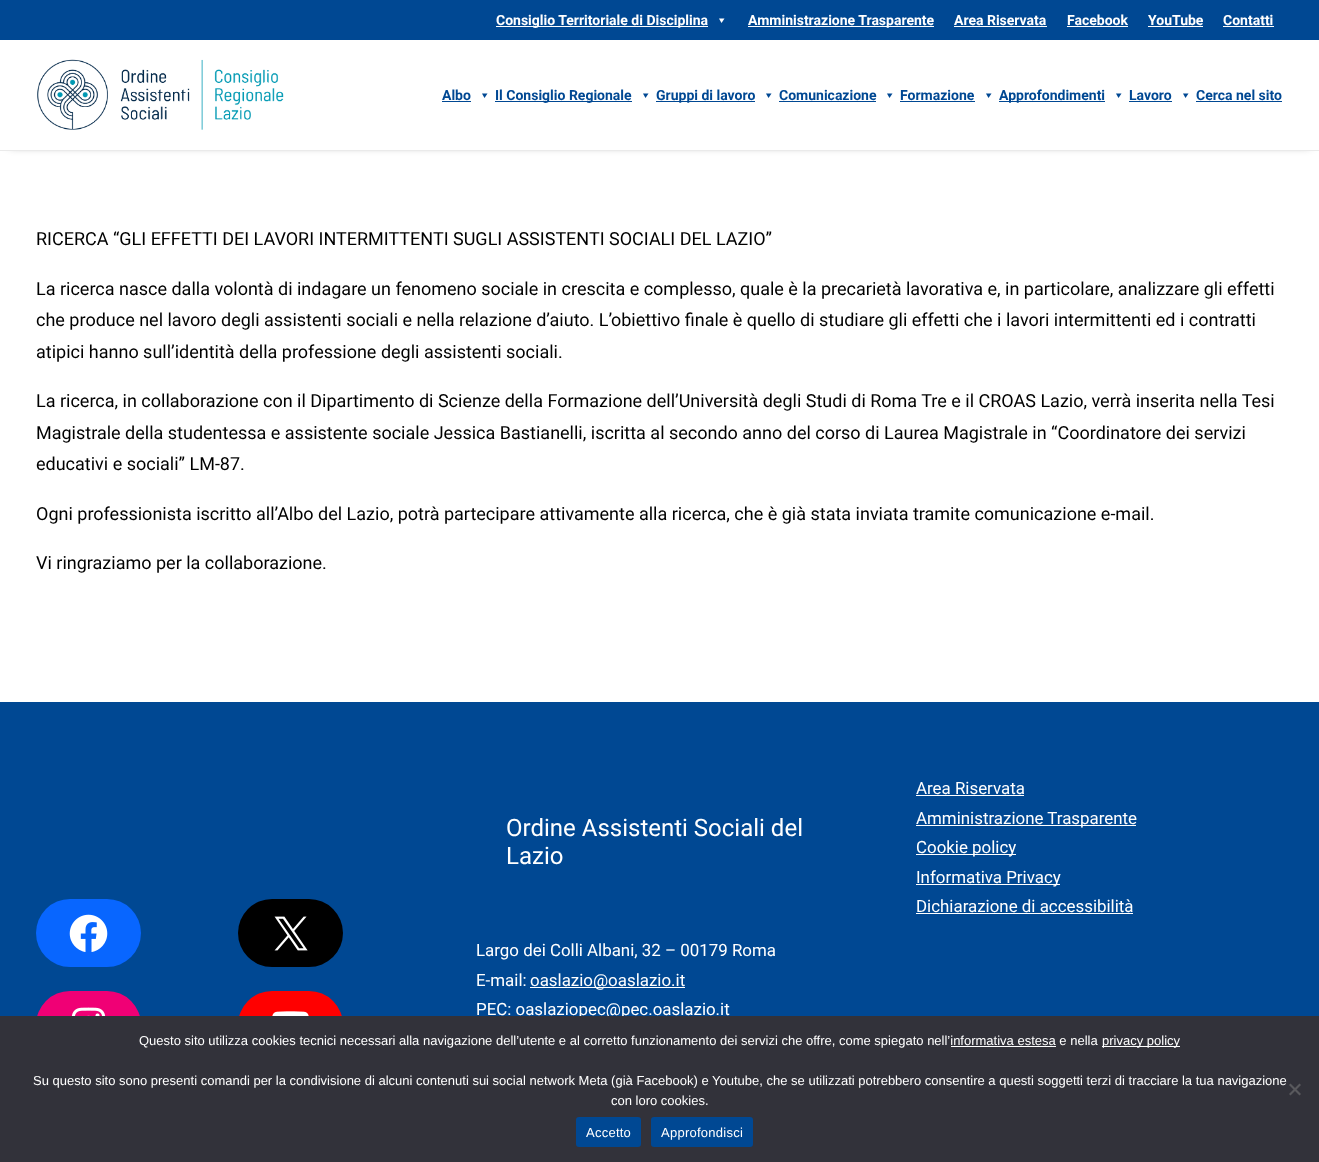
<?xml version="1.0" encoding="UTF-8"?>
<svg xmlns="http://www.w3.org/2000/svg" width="1319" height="1162">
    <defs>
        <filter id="blur1" x="-50%" y="-200%" width="200%" height="500%"><feGaussianBlur stdDeviation="5"/></filter>
    </defs>
    <rect width="100%" height="100%" fill="#FFFFFF"/>
    <rect x="10" y="54" width="1300" height="91" fill="#000000" fill-opacity="0.6" filter="url(#blur1)"/>
    <rect x="0" y="0" width="1319" height="40" fill="#004893"/>
    <rect x="496" y="26" width="212" height="1" fill="#FFFFFF"/>
    <text x="496" y="25" font-family="Roboto" font-size="14" font-weight="700" fill="#FFFFFF">Consiglio Territoriale di Disciplina</text>
    <path d="M 724.5 18.5 L 721.5 23 L 719 18.5 Z" fill="#FFFFFF"/>
    <rect x="748" y="26" width="186" height="1" fill="#FFFFFF"/>
    <text x="748" y="25" font-family="Roboto" font-size="14" font-weight="700" fill="#FFFFFF">Amministrazione Trasparente</text>
    <text x="954" y="25" font-family="Roboto" font-size="14" font-weight="700" fill="#FFFFFF">Area Riservata</text>
    <rect x="954" y="26" width="93" height="1" fill="#FFFFFF"/>
    <text x="1067" y="25" font-family="Roboto" font-size="14" font-weight="700" fill="#FFFFFF">Facebook</text>
    <rect x="1067" y="26" width="61" height="1" fill="#FFFFFF"/>
    <text x="1148" y="25" font-family="Roboto" font-size="14" font-weight="700" fill="#FFFFFF">YouTube</text>
    <rect x="1148" y="26" width="55" height="1" fill="#FFFFFF"/>
    <text x="1223" y="25" font-family="Roboto" font-size="14" font-weight="700" fill="#FFFFFF">Contatti</text>
    <rect x="1223" y="26" width="51" height="1" fill="#FFFFFF"/>
    <rect x="0" y="43" width="1319" height="107" fill="#FFFFFF"/>
    <rect x="0" y="150" width="1319" height="1" fill="#EAEAEA"/>
    <image x="37" y="59" width="247" height="71" href="img_01.png"/>
    <text x="442" y="100" font-family="Roboto" font-size="14" font-weight="700" fill="#004893">Albo</text>
    <rect x="442" y="101" width="29" height="1" fill="#004893"/>
    <path d="M 487.5 93.5 L 484.5 98 L 482 93.5 Z" fill="#004893"/>
    <rect x="495" y="101" width="137" height="1" fill="#004893"/>
    <text x="495" y="100" font-family="Roboto" font-size="14" font-weight="700" fill="#004893">Il Consiglio Regionale</text>
    <path d="M 648.5 93.5 L 645.5 98 L 643 93.5 Z" fill="#004893"/>
    <rect x="656" y="101" width="99" height="1" fill="#004893"/>
    <text x="656" y="100" font-family="Roboto" font-size="14" font-weight="700" fill="#004893">Gruppi di lavoro</text>
    <path d="M 771.5 93.5 L 768.5 98 L 766 93.5 Z" fill="#004893"/>
    <text x="779" y="100" font-family="Roboto" font-size="14" font-weight="700" fill="#004893">Comunicazione</text>
    <rect x="779" y="101" width="97" height="1" fill="#004893"/>
    <path d="M 892.5 93.5 L 889.5 98 L 887 93.5 Z" fill="#004893"/>
    <text x="900" y="100" font-family="Roboto" font-size="14" font-weight="700" fill="#004893">Formazione</text>
    <rect x="900" y="101" width="75" height="1" fill="#004893"/>
    <path d="M 991.5 93.5 L 988.5 98 L 986 93.5 Z" fill="#004893"/>
    <rect x="999" y="101" width="106" height="1" fill="#004893"/>
    <text x="999" y="100" font-family="Roboto" font-size="14" font-weight="700" fill="#004893">Approfondimenti</text>
    <path d="M 1121.5 93.5 L 1118.5 98 L 1116 93.5 Z" fill="#004893"/>
    <text x="1129" y="100" font-family="Roboto" font-size="14" font-weight="700" fill="#004893">Lavoro</text>
    <rect x="1129" y="101" width="43" height="1" fill="#004893"/>
    <path d="M 1188.5 93.5 L 1185.5 98 L 1183 93.5 Z" fill="#004893"/>
    <text x="1196" y="100" font-family="Roboto" font-size="14" font-weight="700" fill="#004893">Cerca nel sito</text>
    <rect x="1196" y="101" width="86" height="1" fill="#004893"/>
    <text x="36" y="245" font-family="Roboto" font-size="18" fill="#000000">RICERCA “GLI EFFETTI DEI LAVORI INTERMITTENTI SUGLI ASSISTENTI SOCIALI DEL LAZIO”</text>
    <text font-family="Roboto" font-size="18" fill="#000000">
        <tspan x="36" y="295">La ricerca nasce dalla volontà di indagare un fenomeno sociale in crescita e complesso, quale è la precarietà lavorativa e, in particolare, analizzare gli effetti</tspan>
        <tspan x="36" y="326">che produce nel lavoro degli assistenti sociali e nella relazione d’aiuto. L’obiettivo finale è quello di studiare gli effetti che i lavori intermittenti ed i contratti</tspan>
        <tspan x="36" y="358">atipici hanno sull’identità della professione degli assistenti sociali.</tspan>
    </text>
    <text font-family="Roboto" font-size="18" fill="#000000">
        <tspan x="36" y="407">La ricerca, in collaborazione con il Dipartimento di Scienze della Formazione dell’Università degli Studi di Roma Tre e il CROAS Lazio, verrà inserita nella Tesi</tspan>
        <tspan x="36" y="439">Magistrale della studentessa e assistente sociale Jessica Bastianelli, iscritta al secondo anno del corso di Laurea Magistrale in “Coordinatore dei servizi</tspan>
        <tspan x="36" y="470">educativi e sociali” LM-87.</tspan>
    </text>
    <text x="36" y="520" font-family="Roboto" font-size="18" fill="#000000">Ogni professionista iscritto all’Albo del Lazio, potrà partecipare attivamente alla ricerca, che è già stata inviata tramite comunicazione e-mail.</text>
    <text x="36" y="569" font-family="Roboto" font-size="18" fill="#000000">Vi ringraziamo per la collaborazione.</text>
    <rect x="0" y="702" width="1319" height="314" fill="#004893"/>
    <rect x="36" y="899" width="105" height="68" rx="34" fill="#0866FF"/>
    <image x="69" y="914" width="39" height="38" href="img_02.png"/>
    <rect x="36" y="991" width="105" height="68" rx="34" fill="#F00075"/>
    <image x="71" y="1007" width="35" height="9" href="img_03.png"/>
    <rect x="238" y="899" width="105" height="68" rx="34" fill="#000000"/>
    <image x="274" y="916" width="34" height="35" href="img_04.png"/>
    <rect x="238" y="991" width="105" height="68" rx="34" fill="#FF0000"/>
    <image x="272" y="1011" width="37" height="5" href="img_05.png"/>
    <text font-family="Roboto" font-size="24" fill="#FFFFFF">
        <tspan x="506" y="836">Ordine Assistenti Sociali del</tspan>
        <tspan x="506" y="864">Lazio</tspan>
    </text>
    <text font-family="Roboto" font-size="16.9" fill="#FFFFFF">
        <tspan x="476" y="956">Largo dei Colli Albani, 32 – 00179 Roma</tspan>
        <tspan x="476" y="986">E-mail:</tspan>
    </text>
    <rect x="530" y="987" width="155" height="1" fill="#FFFFFF"/>
    <text x="530" y="986" font-family="Roboto" font-size="16.9" fill="#FFFFFF">oaslazio@oaslazio.it</text>
    <text x="476" y="1015" font-family="Roboto" font-size="16.9" fill="#FFFFFF">PEC: oaslaziopec@pec.oaslazio.it</text>
    <text x="916" y="794" font-family="Roboto" font-size="16.9" fill="#FFFFFF">Area Riservata</text>
    <rect x="916" y="795" width="108" height="1" fill="#FFFFFF"/>
    <rect x="916" y="825" width="220" height="1" fill="#FFFFFF"/>
    <text x="916" y="824" font-family="Roboto" font-size="16.9" fill="#FFFFFF">Amministrazione Trasparente</text>
    <rect x="916" y="854" width="100" height="1" fill="#FFFFFF"/>
    <text x="916" y="853" font-family="Roboto" font-size="16.9" fill="#FFFFFF">Cookie policy</text>
    <rect x="916" y="884" width="144" height="1" fill="#FFFFFF"/>
    <text font-family="Roboto" font-size="16.9" fill="#FFFFFF">
        <tspan x="916" y="883">Informativa Privacy</tspan>
        <tspan x="916" y="912">Dichiarazione di accessibilità</tspan>
    </text>
    <rect x="916" y="913" width="217" height="1" fill="#FFFFFF"/>
    <rect x="0" y="1016" width="1319" height="146" fill="#32323A"/>
    <text x="139" y="1045" font-family="Liberation Sans" font-size="13" fill="#FFFFFF">Questo sito utilizza cookies tecnici necessari alla navigazione dell’utente e al corretto funzionamento dei servizi che offre, come spiegato nell’informativa estesa e nella</text>
    <rect x="1102" y="1046" width="78" height="1" fill="#FFFFFF"/>
    <text x="1102" y="1045" font-family="Liberation Sans" font-size="13" fill="#FFFFFF">privacy policy</text>
    <rect x="951" y="1046" width="105" height="1" fill="#FFFFFF"/>
    <text x="33" y="1085" font-family="Liberation Sans" font-size="13" fill="#FFFFFF">Su questo sito sono presenti comandi per la condivisione di alcuni contenuti sui social network Meta (già Facebook) e Youtube, che se utilizzati potrebbero consentire a questi soggetti terzi di tracciare la tua navigazione</text>
    <text x="611" y="1105" font-family="Liberation Sans" font-size="13" fill="#FFFFFF">con loro cookies.</text>
    <path d="M 1299.5 1083.5 L 1301 1085 L 1290.5 1095.5 L 1289 1094 Z" fill="#59595D"/>
    <path d="M 1289 1085 L 1290.5 1083.5 L 1301 1094 L 1299.5 1095.5 Z" fill="#59595D"/>
    <rect x="576" y="1117" width="65" height="30" rx="3" fill="#004893"/>
    <text x="586" y="1137" font-family="Liberation Sans" font-size="13" letter-spacing="0.25" fill="#FFFFFF">Accetto</text>
    <rect x="651" y="1117" width="102" height="30" rx="3" fill="#004893"/>
    <text x="661" y="1137" font-family="Liberation Sans" font-size="13" letter-spacing="0.25" fill="#FFFFFF">Approfondisci</text>
</svg>
